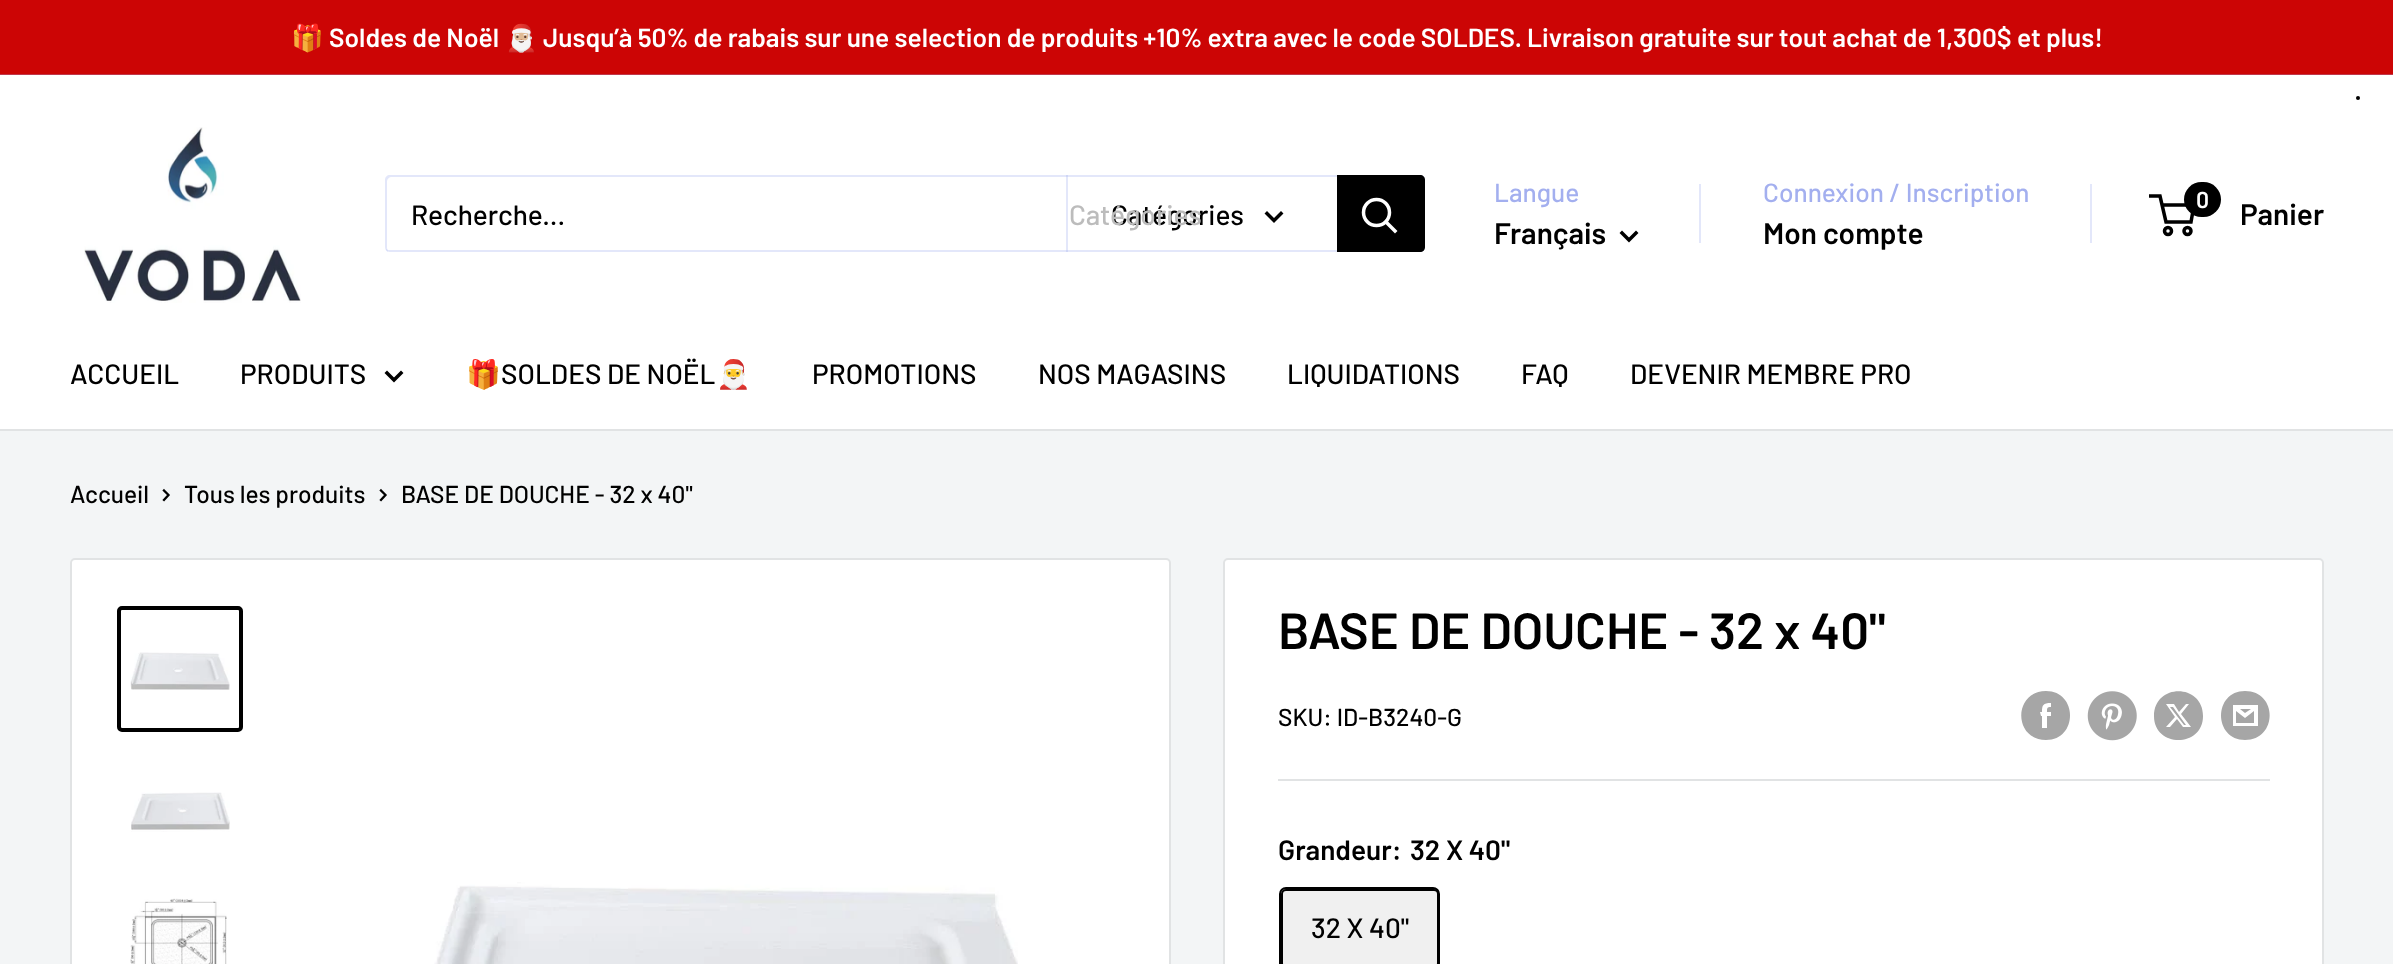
<?xml version="1.0" encoding="UTF-8"?>
<svg xmlns="http://www.w3.org/2000/svg" width="2393" height="964">
    <rect width="100%" height="100%" fill="#F3F5F6"/>
    <rect x="0" y="0" width="2393" height="74" fill="#CC0505"/>
    <rect x="0" y="74" width="2393" height="1" fill="#C0384B"/>
    <text x="291" y="47" font-family="Noto Color Emoji" font-size="26.25" font-weight="700" fill="#FFFFFF">🎁</text>
    <text x="329" y="47" font-family="Barlow" font-size="26.25" font-weight="600" fill="#FFFFFF">Soldes de Noël</text>
    <text x="505" y="47" font-family="Noto Color Emoji" font-size="26.25" font-weight="700" fill="#FFFFFF">🎅🏼</text>
    <text x="543" y="47" font-family="Barlow" font-size="26.25" font-weight="600" fill="#FFFFFF">Jusqu’à 50% de rabais sur une selection de produits +10% extra avec le code SOLDES. Livraison gratuite sur tout achat de 1,300$ et plus!</text>
    <rect x="0" y="75" width="2393" height="354" fill="#FFFFFF"/>
    <circle cx="2358" cy="98" r="2" fill="#000000"/>
    <image x="84" y="127" width="217" height="176" href="img_01.png"/>
    <path d="M 386 249 C 386 251 388 252 390 252 H 1420 C 1423 252 1425 250 1425 247 V 180 C 1425 178 1424 176 1422 175 L 1423 178 V 245 C 1423 248 1420 250 1418 250 H 388 Z" fill="#E3E7FA"/>
    <path d="M 392 177 H 1421 C 1423 177 1424 178 1425 179 C 1424 176 1422 175 1420 175 H 390 C 387 175 385 177 385 180 V 247 C 385 249 386 251 388 252 L 387 248 V 182 C 387 179 389 177 392 177 Z" fill="#A3AFEF" fill-opacity="0.3"/>
    <text x="411" y="225" font-family="Barlow" font-size="28" font-weight="500" fill="#000000">Recherche...</text>
    <rect x="1066" y="175" width="2" height="77" fill="#A3AFEF" fill-opacity="0.3"/>
    <text x="1111" y="225" font-family="Barlow" font-size="28" font-weight="500" fill="#000000">Catégories</text>
    <text x="1069" y="225" font-family="Barlow" font-size="28" font-weight="500" fill="#BCBCBC">Catégories</text>
    <path d="M 1281 213.5 L 1274 220.5 L 1267 213.5" fill="none" stroke="#000000" stroke-width="3.5" stroke-linecap="square"/>
    <path d="M 1337 175 H 1420 C 1423 175 1425 177 1425 180 V 247 C 1425 250 1423 252 1420 252 H 1337 Z" fill="#000000"/>
    <path d="M 1395 231 L 1386 222" fill="none" stroke="#FFFFFF" stroke-width="3.5" stroke-linecap="square"/>
    <circle cx="1376.5" cy="212.5" r="13" fill="none" stroke="#FFFFFF" stroke-width="3.5"/>
    <text x="1494" y="202" font-family="Barlow" font-size="26.25" font-weight="500" fill="#A3AFEF">Langue</text>
    <text x="1494" y="244" font-family="Barlow" font-size="29.75" font-weight="600" fill="#000000">Français</text>
    <path d="M 1636 233 L 1629 240 L 1622 233" fill="none" stroke="#000000" stroke-width="3.5" stroke-linecap="square"/>
    <rect x="1699" y="184" width="2" height="59" fill="#E3E7FA"/>
    <text x="1763" y="202" font-family="Barlow" font-size="26.25" font-weight="500" fill="#A3AFEF">Connexion / Inscription</text>
    <rect x="2090" y="184" width="2" height="59" fill="#E3E7FA"/>
    <text x="1763" y="244" font-family="Barlow" font-size="29.75" font-weight="600" fill="#000000">Mon compte</text>
    <circle cx="2168" cy="231" r="3.5" fill="none" stroke="#000000" stroke-width="3.5"/>
    <circle cx="2187.5" cy="231" r="3.5" fill="none" stroke="#000000" stroke-width="3.5"/>
    <path d="M 2162 205 H 2194 L 2191 222 H 2166 L 2160 196 H 2149" fill="none" stroke="#000000" stroke-width="3.5"/>
    <rect x="2184" y="182" width="37" height="35" rx="17.5" fill="#000000"/>
    <text x="2196" y="208" font-family="Barlow" font-size="23" font-weight="600" fill="#FFFFFF">0</text>
    <text x="2240" y="225" font-family="Barlow" font-size="29.75" font-weight="600" fill="#000000">Panier</text>
    <rect x="0" y="429" width="2393" height="2" fill="#E1E3E4"/>
    <text x="70" y="384" font-family="Barlow" font-size="28" font-weight="500" fill="#000000">ACCUEIL</text>
    <text x="240" y="384" font-family="Barlow" font-size="28" font-weight="500" fill="#000000">PRODUITS</text>
    <path d="M 401 373 L 394 380 L 387 373" fill="none" stroke="#000000" stroke-width="3.5" stroke-linecap="square"/>
    <text x="466" y="384" font-family="Noto Color Emoji" font-size="28" fill="#000000">🎁</text>
    <text x="501" y="384" font-family="Barlow" font-size="28" font-weight="500" fill="#000000">SOLDES DE NOËL</text>
    <text x="716" y="384" font-family="Noto Color Emoji" font-size="28" fill="#000000">🎅</text>
    <text x="812" y="384" font-family="Barlow" font-size="28" font-weight="500" fill="#000000">PROMOTIONS</text>
    <text x="1038" y="384" font-family="Barlow" font-size="28" font-weight="500" fill="#000000">NOS MAGASINS</text>
    <text x="1287" y="384" font-family="Barlow" font-size="28" font-weight="500" fill="#000000">LIQUIDATIONS</text>
    <text x="1521" y="384" font-family="Barlow" font-size="28" font-weight="500" fill="#000000">FAQ</text>
    <text x="1630" y="384" font-family="Barlow" font-size="28" font-weight="500" fill="#000000">DEVENIR MEMBRE PRO</text>
    <text x="70" y="503" font-family="Barlow" font-size="24.5" font-weight="500" fill="#000000">Accueil</text>
    <path d="M 164 490.5 L 168.5 495 L 164 500" fill="none" stroke="#000000" stroke-width="2.3" stroke-linecap="square"/>
    <text x="184" y="503" font-family="Barlow" font-size="24.5" font-weight="500" fill="#000000">Tous les produits</text>
    <path d="M 381 490.5 L 385.5 495 L 381 500" fill="none" stroke="#000000" stroke-width="2.3" stroke-linecap="square"/>
    <text x="401" y="503" font-family="Barlow" font-size="24.5" font-weight="500" fill="#000000">BASE DE DOUCHE - 32 x 40"</text>
    <rect x="71" y="559" width="1099" height="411" rx="4" fill="#FFFFFF" stroke="#E1E3E4" stroke-width="2"/>
    <rect x="119" y="608" width="122" height="122" rx="3" fill="none" stroke="#000000" stroke-width="4"/>
    <image x="130" y="652" width="100" height="38" href="img_02.png"/>
    <image x="131" y="792" width="99" height="40" href="img_03.png"/>
    <image x="130" y="898" width="97" height="66" href="img_04.png"/>
    <image x="434" y="882" width="584" height="82" href="img_05.png"/>
    <rect x="1224" y="559" width="1099" height="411" rx="4" fill="#FFFFFF" stroke="#E1E3E4" stroke-width="2"/>
    <text x="1278" y="649" font-family="Barlow" font-size="50.75" font-weight="600" fill="#000000">BASE DE DOUCHE - 32 x 40"</text>
    <text x="1278" y="726" font-family="Barlow" font-size="24.5" font-weight="500" fill="#000000">SKU: ID-B3240-G</text>
    <path d="M 2046 740 C 2013 740 2013 691 2046 691 C 2078 691 2078 740 2046 740 Z M 2051 712 H 2047 C 2047 708 2047 707 2051 707 V 703 C 2043 703 2042 705 2042 712 H 2040 L 2041 716 H 2042 V 728 H 2047 V 716 H 2051 Z" fill="#A6A6A6" fill-rule="evenodd"/>
    <image x="2087" y="691" width="50" height="50" href="img_06.png"/>
    <path d="M 2203 716 C 2203 748 2154 748 2154 716 C 2154 683 2203 683 2203 716 Z M 2189 704 H 2186 L 2179 712 L 2174 704 H 2166 L 2175 717 L 2166 727 H 2170 L 2177 719 L 2183 727 H 2191 L 2181 714 Z M 2186 725 H 2184 L 2170 707 H 2173 Z" fill="#A6A6A6" fill-rule="evenodd"/>
    <path d="M 2245 740 C 2213 740 2213 691 2245 691 C 2278 691 2278 740 2245 740 Z M 2240 709 H 2251 L 2245 713 Z M 2254 711 V 723 H 2236 V 711 L 2245 718 Z M 2258 705 H 2233 V 726 H 2258 Z" fill="#A6A6A6"/>
    <rect x="1278" y="779" width="992" height="2" fill="#E1E3E4"/>
    <text x="1278" y="860" font-family="Barlow" font-size="28" font-weight="600" fill="#000000">Grandeur:</text>
    <text x="1410" y="860" font-family="Barlow" font-size="28" font-weight="600" fill="#000000">32 X 40"</text>
    <rect x="1280" y="888" width="159" height="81" rx="6" fill="none" stroke="#000000" stroke-width="2"/>
    <rect x="1281" y="889" width="158" height="75" fill="#000000" fill-opacity="0.06"/>
    <rect x="1282" y="890" width="156" height="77" rx="4" fill="none" stroke="#000000" stroke-width="2"/>
    <text x="1311" y="938" font-family="Barlow" font-size="28" font-weight="500" fill="#000000">32 X 40"</text>
</svg>
